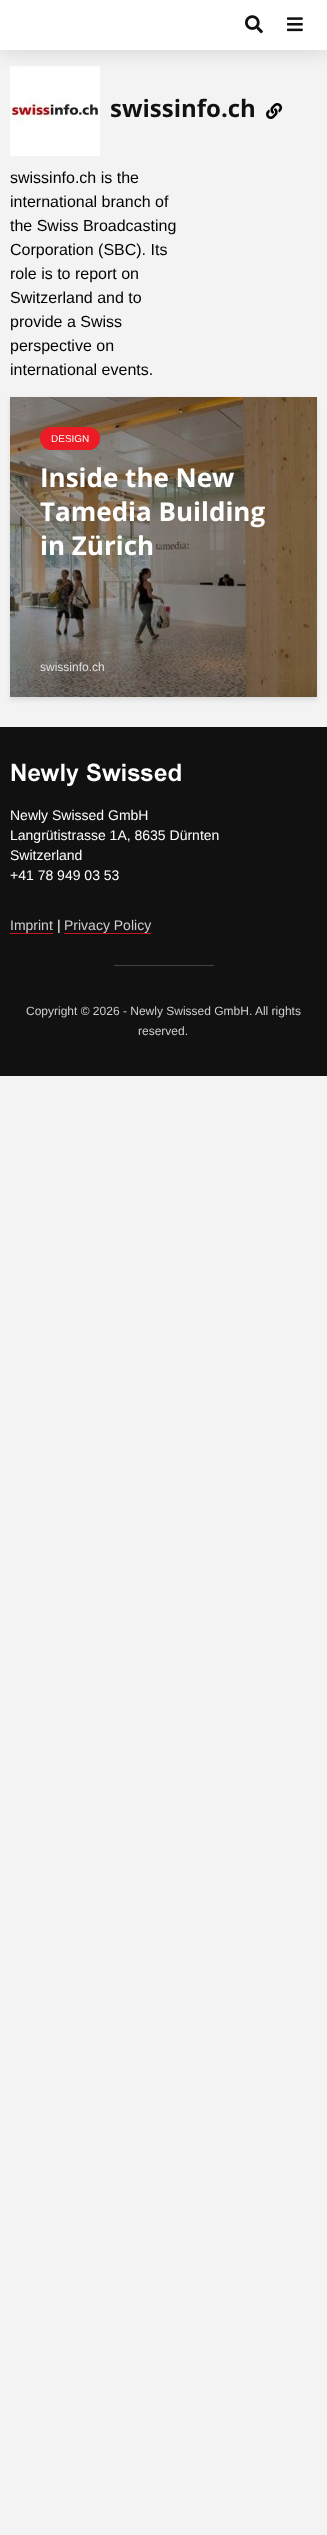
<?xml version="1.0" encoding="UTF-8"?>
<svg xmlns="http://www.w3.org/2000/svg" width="327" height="2535">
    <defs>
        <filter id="blur1" x="-50%" y="-200%" width="200%" height="500%"><feGaussianBlur stdDeviation="10"/></filter>
        <filter id="blur2" x="-50%" y="-200%" width="200%" height="500%"><feGaussianBlur stdDeviation="2.5"/></filter>
    </defs>
    <rect width="100%" height="100%" fill="#F3F3F3"/>
    <image x="10" y="66" width="90" height="90" href="img_03.png"/>
    <rect x="0" y="0" width="327" height="50" fill="#000000" fill-opacity="0.15" filter="url(#blur1)"/>
    <rect x="0" y="0" width="327" height="50" fill="#FFFFFF"/>
    <image x="245" y="15" width="18" height="19" href="img_01.png"/>
    <image x="287" y="17" width="16" height="15" href="img_02.png"/>
    <text x="110" y="117" font-family="Open Sans" font-size="24" font-weight="700" fill="#111111">swissinfo.ch</text>
    <image x="266" y="103" width="16" height="16" href="img_04.png"/>
    <text font-family="Liberation Sans" font-size="16" fill="#000000">
        <tspan x="10" y="183">swissinfo.ch is the</tspan>
        <tspan x="10" y="207">international branch of</tspan>
        <tspan x="10" y="231">the Swiss Broadcasting</tspan>
        <tspan x="10" y="255">Corporation (SBC). Its</tspan>
        <tspan x="10" y="279">role is to report on</tspan>
        <tspan x="10" y="303">Switzerland and to</tspan>
        <tspan x="10" y="327">provide a Swiss</tspan>
        <tspan x="10" y="351">perspective on</tspan>
        <tspan x="10" y="375">international events.</tspan>
    </text>
    <rect x="10" y="400" width="307" height="300" fill="#000101" fill-opacity="0.1" filter="url(#blur2)"/>
    <image x="10" y="397" width="307" height="300" href="img_05.png"/>
    <rect x="40" y="427" width="60" height="23" rx="11.5" fill="#ED1B25"/>
    <text x="51" y="442" font-family="Liberation Sans" font-size="10" fill="#FFFFFF">DESIGN</text>
    <text font-family="Open Sans" font-size="26" font-weight="700" fill="#FFFFFF">
        <tspan x="40" y="487">Inside the New</tspan>
        <tspan x="40" y="521">Tamedia Building</tspan>
        <tspan x="40" y="555">in Zürich</tspan>
    </text>
    <text x="40" y="671" font-family="Liberation Sans" font-size="12" fill="#E1DFDE">swissinfo.ch</text>
    <rect x="0" y="727" width="327" height="349" fill="#111111"/>
    <image x="11" y="763" width="170" height="23" href="img_06.png"/>
    <text font-family="Liberation Sans" font-size="14" fill="#FFFFFF">
        <tspan x="10" y="820">Newly Swissed GmbH</tspan>
        <tspan x="10" y="840">Langrütistrasse 1A, 8635 Dürnten</tspan>
        <tspan x="10" y="860">Switzerland</tspan>
        <tspan x="10" y="880">+41 78 949 03 53</tspan>
    </text>
    <text x="10" y="930" font-family="Liberation Sans" font-size="14" fill="#CFCFCF">Imprint</text>
    <rect x="10" y="933" width="43" height="1" fill="#C11921"/>
    <text x="57" y="930" font-family="Liberation Sans" font-size="14" fill="#FFFFFF">|</text>
    <text x="64" y="930" font-family="Liberation Sans" font-size="14" fill="#CFCFCF">Privacy Policy</text>
    <rect x="64" y="933" width="87" height="1" fill="#C11921"/>
    <rect x="114" y="965" width="100" height="1" fill="#414141"/>
    <text x="26" y="1015" font-family="Liberation Sans" font-size="12" fill="#CFCFCF">Copyright © 2026 - Newly Swissed GmbH. All rights</text>
    <text x="138" y="1035" font-family="Liberation Sans" font-size="12" fill="#CFCFCF">reserved.</text>
</svg>
